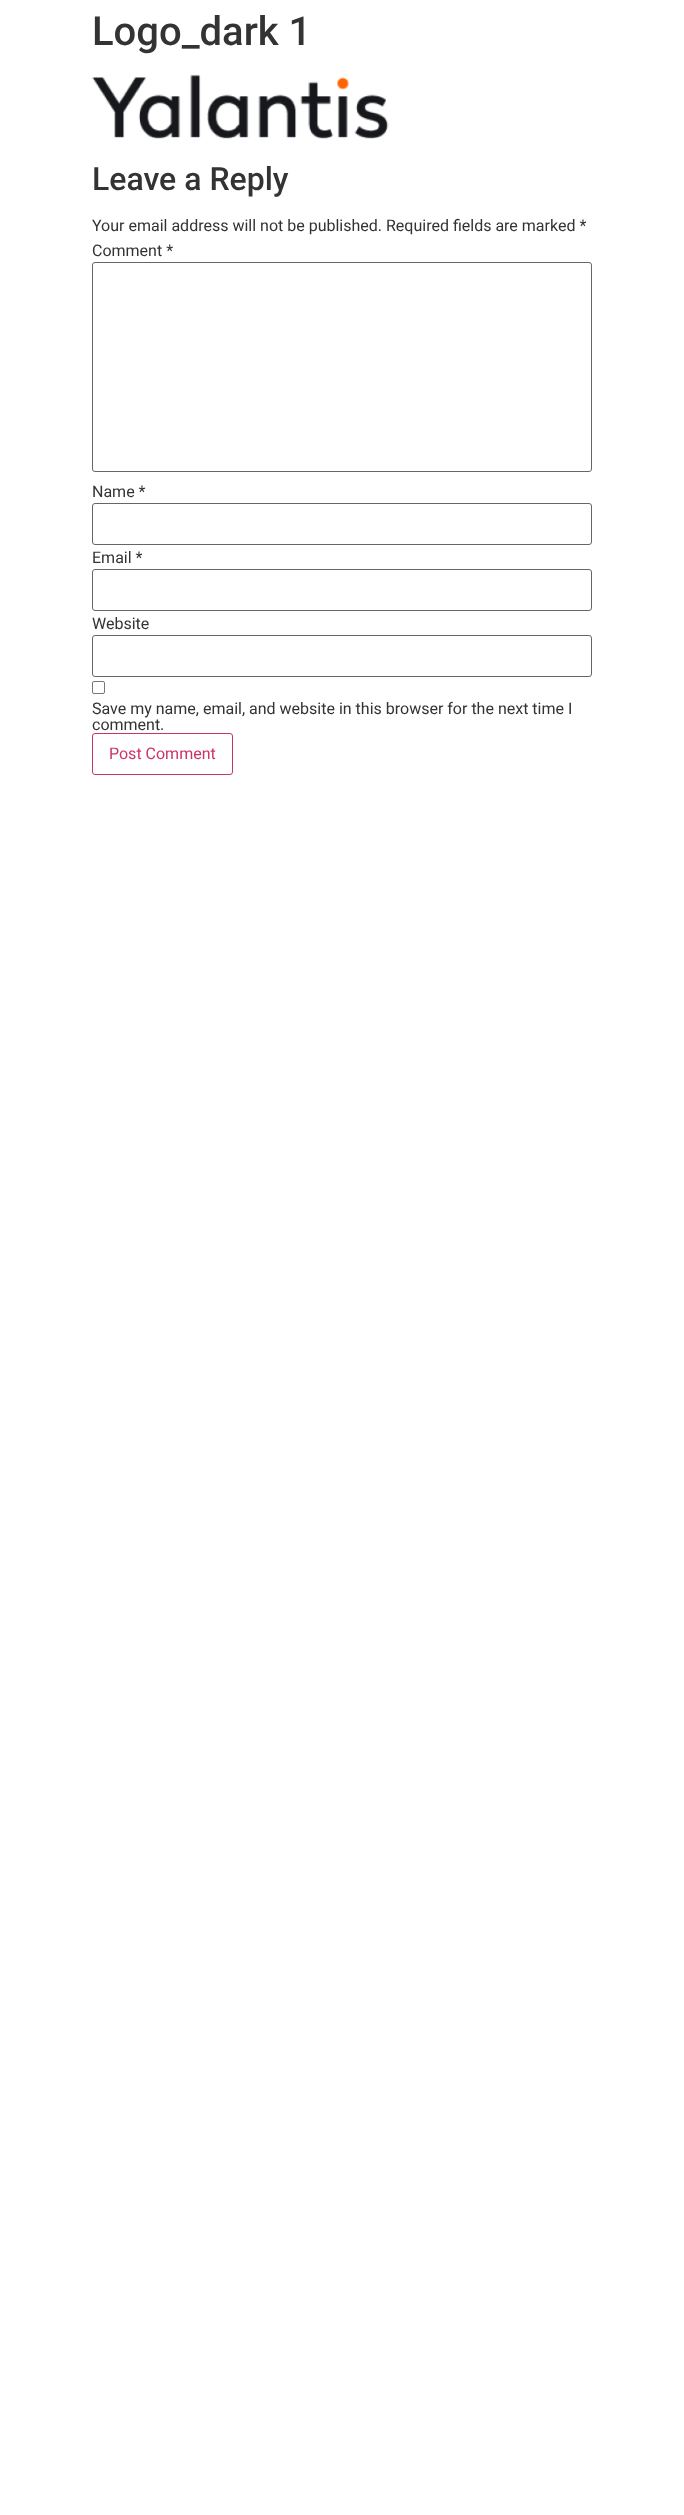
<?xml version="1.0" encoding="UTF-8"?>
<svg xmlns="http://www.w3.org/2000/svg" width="684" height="2515">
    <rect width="100%" height="100%" fill="#FFFFFF"/>
    <text x="92" y="45" font-family="Roboto" font-size="40" font-weight="500" fill="#333333">Logo_dark 1</text>
    <image x="92" y="74" width="297" height="65" href="img_01.png"/>
    <text x="92" y="190" font-family="Roboto" font-size="32" font-weight="500" fill="#333333">Leave a Reply</text>
    <text font-family="Roboto" font-size="16" fill="#333333">
        <tspan x="92" y="231">Your email address will not be published. Required fields are marked *</tspan>
        <tspan x="92" y="256">Comment *</tspan>
    </text>
    <rect x="92.5" y="262.5" width="499" height="209" rx="2.5" fill="none" stroke="#666666"/>
    <text x="92" y="497" font-family="Roboto" font-size="16" fill="#333333">Name *</text>
    <rect x="92.5" y="503.5" width="499" height="41" rx="2.5" fill="none" stroke="#666666"/>
    <text x="92" y="563" font-family="Roboto" font-size="16" fill="#333333">Email *</text>
    <rect x="92.5" y="569.5" width="499" height="41" rx="2.5" fill="none" stroke="#666666"/>
    <text x="92" y="629" font-family="Roboto" font-size="16" fill="#333333">Website</text>
    <rect x="92.5" y="635.5" width="499" height="41" rx="2.5" fill="none" stroke="#666666"/>
    <rect x="92.5" y="681.5" width="12" height="12" rx="1.5" fill="none" stroke="#767676"/>
    <text font-family="Roboto" font-size="16" fill="#333333">
        <tspan x="92" y="714">Save my name, email, and website in this browser for the next time I</tspan>
        <tspan x="92" y="730">comment.</tspan>
    </text>
    <rect x="92.5" y="733.5" width="140" height="41" rx="2.5" fill="none" stroke="#CC3366"/>
    <text x="109" y="759" font-family="Roboto" font-size="16" fill="#CC3366">Post Comment</text>
</svg>
